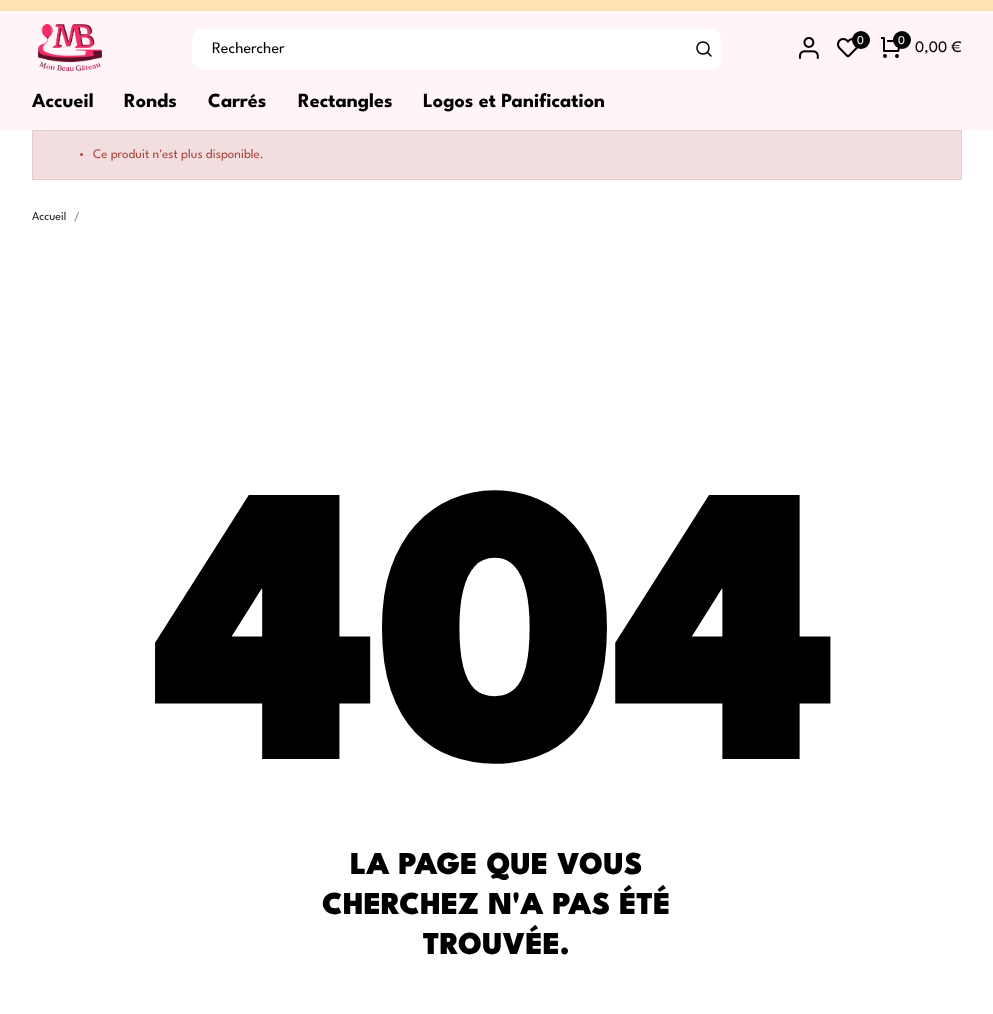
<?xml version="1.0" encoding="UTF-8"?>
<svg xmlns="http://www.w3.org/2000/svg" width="993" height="1014">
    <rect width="100%" height="100%" fill="#FFFFFF"/>
    <rect x="0" y="11" width="993" height="119" fill="#FFF5F8"/>
    <rect x="0" y="0" width="993" height="11" fill="#FDE3B2"/>
    <image x="38" y="24" width="64" height="47" href="img_01.png"/>
    <rect x="192" y="29" width="529" height="40" rx="10" fill="#FFFFFF"/>
    <text x="212" y="53" font-family="League Spartan" font-size="16" font-weight="100" fill="#000000">Rechercher</text>
    <image x="696" y="41" width="16" height="16" href="img_02.png"/>
    <image x="799" y="37" width="20" height="22" href="img_03.png"/>
    <image x="837" y="38" width="21" height="20" href="img_04.png"/>
    <circle cx="861" cy="40" r="9" fill="#000000"/>
    <text x="857" y="44" font-family="League Spartan" font-size="12" font-weight="100" fill="#FFFFFF">0</text>
    <image x="881" y="37" width="19" height="21" href="img_05.png"/>
    <circle cx="902" cy="40" r="9" fill="#000000"/>
    <text x="898" y="44" font-family="League Spartan" font-size="12" font-weight="100" fill="#FFFFFF">0</text>
    <text x="915" y="52" font-family="League Spartan" font-size="16" font-weight="100" fill="#000000">0,00 €</text>
    <text x="32" y="107" font-family="'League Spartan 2'" font-size="20" font-weight="100" fill="#000000">Accueil</text>
    <text x="124" y="107" font-family="'League Spartan 2'" font-size="20" font-weight="100" fill="#000000">Ronds</text>
    <text x="208" y="107" font-family="'League Spartan 2'" font-size="20" font-weight="100" fill="#000000">Carrés</text>
    <text x="298" y="107" font-family="'League Spartan 2'" font-size="20" font-weight="100" fill="#000000">Rectangles</text>
    <text x="423" y="107" font-family="'League Spartan 2'" font-size="20" font-weight="100" fill="#000000">Logos et Panification</text>
    <rect x="32.5" y="130.5" width="929" height="49" fill="#F2DEDE" stroke="#EBCCCC"/>
    <circle cx="81.5" cy="154.5" r="1.5" fill="#A94442"/>
    <text x="93" y="158" font-family="League Spartan" font-size="13" font-weight="100" fill="#A94442">Ce produit n'est plus disponible.</text>
    <text x="32" y="220" font-family="League Spartan" font-size="12" font-weight="100" fill="#232323">Accueil</text>
    <text x="74" y="220" font-family="League Spartan" font-size="12" font-weight="100" fill="#7A7A7A">/</text>
    <text x="157" y="759" font-family="'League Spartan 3'" font-size="400" font-weight="100" fill="#000000">404</text>
    <text x="350" y="874" font-family="'League Spartan 3'" font-size="32" font-weight="100" fill="#000000">LA PAGE QUE VOUS</text>
    <text x="322" y="914" font-family="'League Spartan 3'" font-size="32" font-weight="100" fill="#000000">CHERCHEZ N'A PAS ÉTÉ</text>
    <text x="423" y="954" font-family="'League Spartan 3'" font-size="32" font-weight="100" fill="#000000">TROUVÉE.</text>
</svg>
